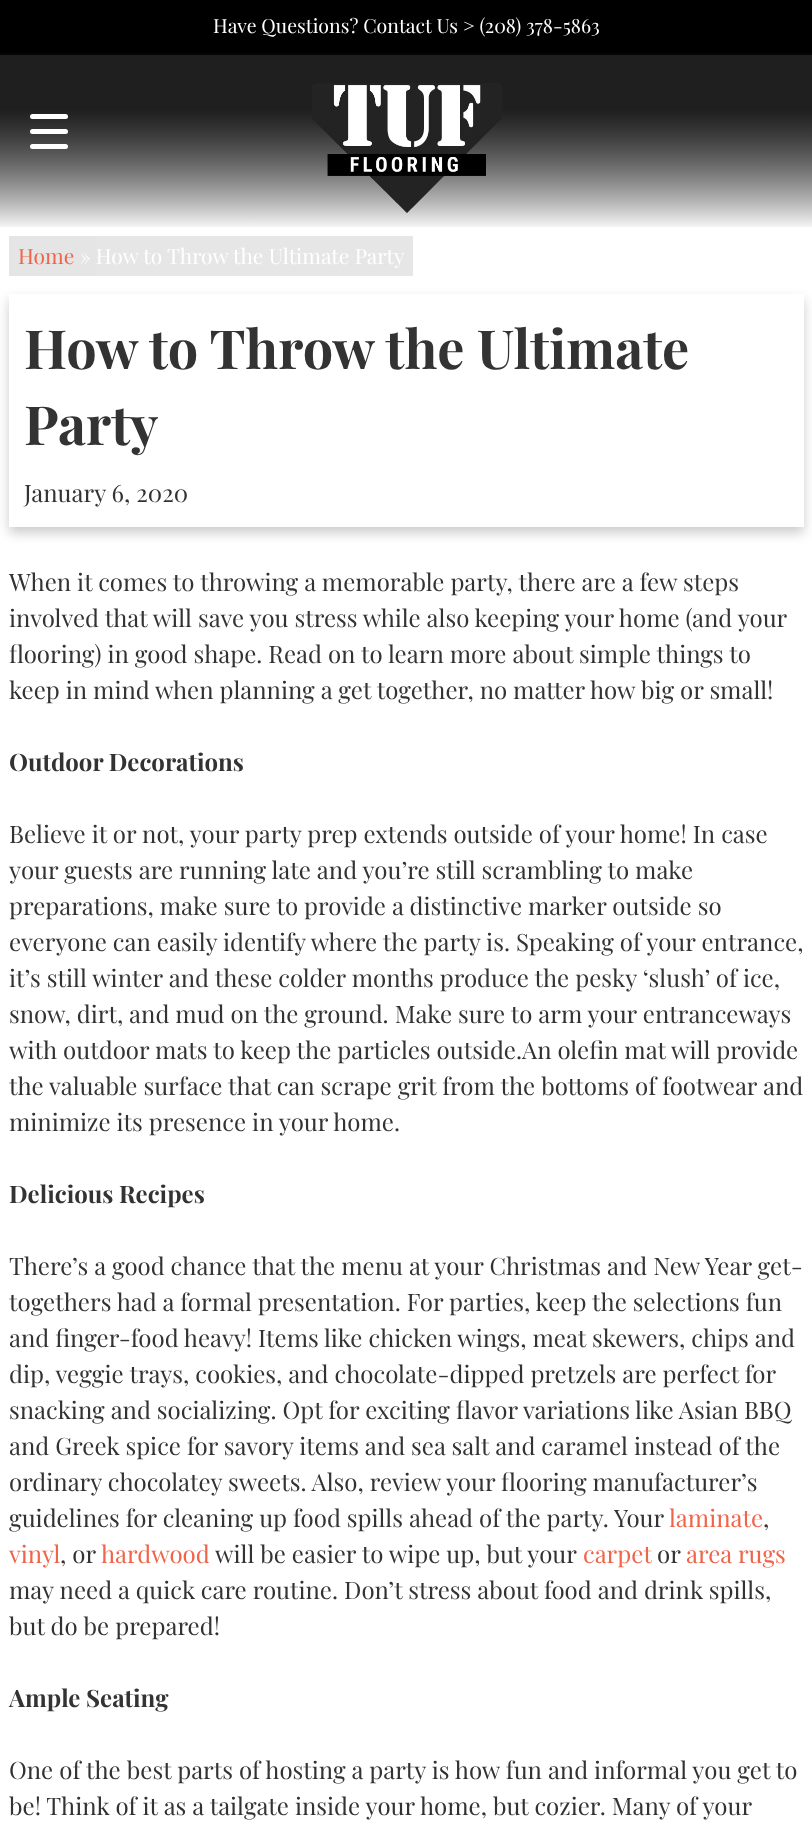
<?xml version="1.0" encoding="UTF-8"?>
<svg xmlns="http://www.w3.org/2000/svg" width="812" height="1829">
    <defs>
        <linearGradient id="g1" gradientUnits="userSpaceOnUse" x1="407" y1="45" x2="407" y2="231"><stop offset="0.35" stop-color="#000000" stop-opacity="0.65"/><stop offset="1" stop-color="#000000" stop-opacity="0"/></linearGradient>
        <clipPath id="clip1"><path d="M 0 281 H 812 V 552 H 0 Z M 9 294 H 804 V 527 H 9 Z" clip-rule="evenodd"/></clipPath>
        <filter id="blur1" x="-50%" y="-200%" width="200%" height="500%"><feGaussianBlur stdDeviation="6"/></filter>
    </defs>
    <rect width="100%" height="100%" fill="#FFFFFF"/>
    <rect x="0" y="0" width="812" height="53" fill="#000000"/>
    <rect x="0" y="53" width="812" height="2" fill="#303030"/>
    <text x="213" y="33" font-family="Playfair Display" font-size="19.5" fill="#FFFFFF">Have Questions? Contact Us &gt; (208) 378-5863</text>
    <rect x="0" y="53" width="812" height="174" fill="url(#g1)"/>
    <rect x="0" y="53" width="812" height="174" fill="url(#g1)"/>
    <image x="312" y="83" width="190" height="130" href="img_01.png"/>
    <rect x="9" y="236" width="87" height="40" fill="#E5E5E5"/>
    <text x="18" y="264" font-family="Playfair Display" font-size="21" fill="#F06449">Home</text>
    <rect x="96" y="236" width="317" height="40" fill="#E6E6E6"/>
    <text x="80" y="264" font-family="Playfair Display" font-size="21" fill="#FFFFFF">» How to Throw the Ultimate Party</text>
    <g clip-path="url(#clip1)">
        <rect x="9" y="300" width="795" height="233" fill="#000000" fill-opacity="0.2" filter="url(#blur1)"/>
    </g>
    <text font-family="Playfair Display" font-size="54" font-weight="700" fill="#333333">
        <tspan x="24" y="369">How to Throw the Ultimate</tspan>
        <tspan x="24" y="445">Party</tspan>
    </text>
    <text x="24" y="502" font-family="Playfair Display" font-size="24" fill="#333333">January 6, 2020</text>
    <text font-family="Playfair Display" font-size="24" fill="#333333">
        <tspan x="9" y="591">When it comes to throwing a memorable party, there are a few steps</tspan>
        <tspan x="9" y="627">involved that will save you stress while also keeping your home (and your</tspan>
        <tspan x="9" y="663">flooring) in good shape. Read on to learn more about simple things to</tspan>
        <tspan x="9" y="699">keep in mind when planning a get together, no matter how big or small!</tspan>
    </text>
    <text x="9" y="771" font-family="Playfair Display" font-size="24" font-weight="700" fill="#333333">Outdoor Decorations</text>
    <text font-family="Playfair Display" font-size="24" fill="#333333">
        <tspan x="9" y="843">Believe it or not, your party prep extends outside of your home! In case</tspan>
        <tspan x="9" y="879">your guests are running late and you’re still scrambling to make</tspan>
        <tspan x="9" y="915">preparations, make sure to provide a distinctive marker outside so</tspan>
        <tspan x="9" y="951">everyone can easily identify where the party is. Speaking of your entrance,</tspan>
        <tspan x="9" y="987">it’s still winter and these colder months produce the pesky ‘slush’ of ice,</tspan>
        <tspan x="9" y="1023">snow, dirt, and mud on the ground. Make sure to arm your entranceways</tspan>
        <tspan x="9" y="1059">with outdoor mats to keep the particles outside.An olefin mat will provide</tspan>
        <tspan x="9" y="1095">the valuable surface that can scrape grit from the bottoms of footwear and</tspan>
        <tspan x="9" y="1131">minimize its presence in your home.</tspan>
    </text>
    <text x="9" y="1203" font-family="Playfair Display" font-size="24" font-weight="700" fill="#333333">Delicious Recipes</text>
    <text font-family="Playfair Display" font-size="24" fill="#333333">
        <tspan x="9" y="1275">There’s a good chance that the menu at your Christmas and New Year get-</tspan>
        <tspan x="9" y="1311">togethers had a formal presentation. For parties, keep the selections fun</tspan>
        <tspan x="9" y="1347">and finger-food heavy! Items like chicken wings, meat skewers, chips and</tspan>
        <tspan x="9" y="1383">dip, veggie trays, cookies, and chocolate-dipped pretzels are perfect for</tspan>
        <tspan x="9" y="1419">snacking and socializing. Opt for exciting flavor variations like Asian BBQ</tspan>
        <tspan x="9" y="1455">and Greek spice for savory items and sea salt and caramel instead of the</tspan>
        <tspan x="9" y="1491">ordinary chocolatey sweets. Also, review your flooring manufacturer’s</tspan>
        <tspan x="9" y="1527">guidelines for cleaning up food spills ahead of the party. Your</tspan>
    </text>
    <text x="669" y="1527" font-family="Playfair Display" font-size="24" fill="#F06449">laminate</text>
    <text x="763" y="1527" font-family="Playfair Display" font-size="24" fill="#333333">,</text>
    <text x="9" y="1563" font-family="Playfair Display" font-size="24" fill="#F06449">vinyl</text>
    <text x="60" y="1563" font-family="Playfair Display" font-size="24" fill="#333333">, or</text>
    <text x="101" y="1563" font-family="Playfair Display" font-size="24" fill="#F06449">hardwood</text>
    <text x="215" y="1563" font-family="Playfair Display" font-size="24" fill="#333333">will be easier to wipe up, but your</text>
    <text x="583" y="1563" font-family="Playfair Display" font-size="24" fill="#F06449">carpet</text>
    <text x="657" y="1563" font-family="Playfair Display" font-size="24" fill="#333333">or</text>
    <text x="686" y="1563" font-family="Playfair Display" font-size="24" fill="#F06449">area rugs</text>
    <text font-family="Playfair Display" font-size="24" fill="#333333">
        <tspan x="9" y="1599">may need a quick care routine. Don’t stress about food and drink spills,</tspan>
        <tspan x="9" y="1635">but do be prepared!</tspan>
    </text>
    <text x="9" y="1707" font-family="Playfair Display" font-size="24" font-weight="700" fill="#333333">Ample Seating</text>
    <text font-family="Playfair Display" font-size="24" fill="#333333">
        <tspan x="9" y="1779">One of the best parts of hosting a party is how fun and informal you get to</tspan>
        <tspan x="9" y="1815">be! Think of it as a tailgate inside your home, but cozier. Many of your</tspan>
    </text>
    <rect x="30" y="129" width="38" height="5" rx="2.5" fill="#FFFFFF"/>
    <rect x="30" y="114" width="38" height="5" rx="2.5" fill="#FFFFFF"/>
    <rect x="30" y="144" width="38" height="5" rx="2.5" fill="#FFFFFF"/>
</svg>
